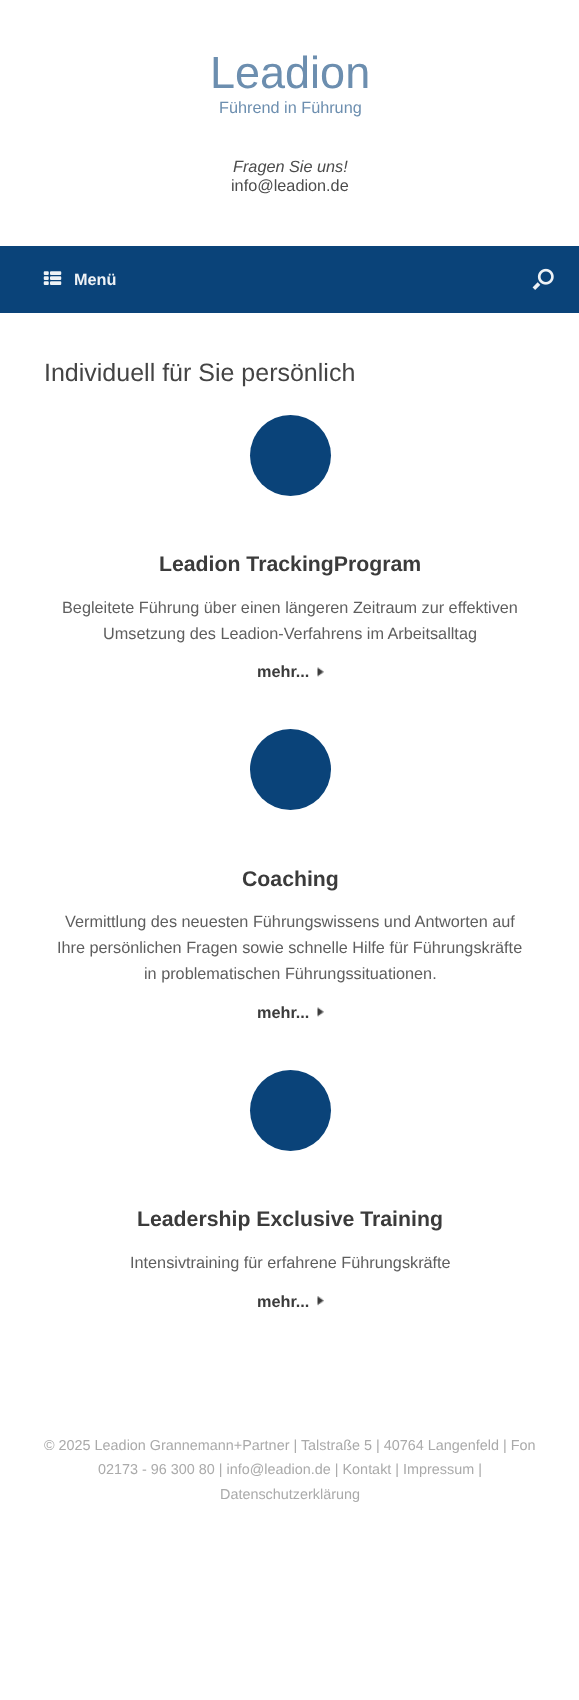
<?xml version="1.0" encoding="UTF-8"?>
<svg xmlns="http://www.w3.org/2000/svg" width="579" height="1700">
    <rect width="100%" height="100%" fill="#FFFFFF"/>
    <text x="210" y="88" font-family="Liberation Sans" font-size="45" fill="#6C8EAF">Leadion</text>
    <text x="219" y="113" font-family="Liberation Sans" font-size="16.25" fill="#6C8EAF">Führend in Führung</text>
    <text x="233" y="172" font-family="Liberation Sans" font-size="16.25" font-style="italic" fill="#4B4B4B">Fragen Sie uns!</text>
    <text x="231" y="191" font-family="Liberation Sans" font-size="16.25" fill="#4B4B4B">info@leadion.de</text>
    <rect x="0" y="246" width="579" height="67" fill="#0A4379"/>
    <image x="43" y="271" width="19" height="14" href="img_01.png"/>
    <text x="74" y="285" font-family="Liberation Sans" font-size="16.25" font-weight="700" fill="#EEF2F6">Menü</text>
    <image x="532" y="268" width="22" height="22" href="img_02.png"/>
    <text x="44" y="381" font-family="Liberation Sans" font-size="25" fill="#444444">Individuell für Sie persönlich</text>
    <circle cx="290.5" cy="455.5" r="40.5" fill="#0A4379"/>
    <text x="159" y="571" font-family="Liberation Sans" font-size="21.25" font-weight="700" fill="#3B3B3B">Leadion TrackingProgram</text>
    <text x="62" y="613" font-family="Liberation Sans" font-size="16.25" fill="#5E5E5E">Begleitete Führung über einen längeren Zeitraum zur effektiven</text>
    <text x="103" y="639" font-family="Liberation Sans" font-size="16.25" fill="#5E5E5E">Umsetzung des Leadion-Verfahrens im Arbeitsalltag</text>
    <text x="257" y="677" font-family="Liberation Sans" font-size="16.25" font-weight="700" fill="#3B3B3B">mehr...</text>
    <image x="317" y="667" width="7" height="10" href="img_03.png"/>
    <circle cx="290.5" cy="769.5" r="40.5" fill="#0A4379"/>
    <text x="242" y="886" font-family="Liberation Sans" font-size="21.25" font-weight="700" fill="#3B3B3B">Coaching</text>
    <text x="65" y="927" font-family="Liberation Sans" font-size="16.25" fill="#5E5E5E">Vermittlung des neuesten Führungswissens und Antworten auf</text>
    <text x="57" y="953" font-family="Liberation Sans" font-size="16.25" fill="#5E5E5E">Ihre persönlichen Fragen sowie schnelle Hilfe für Führungskräfte</text>
    <text x="144" y="979" font-family="Liberation Sans" font-size="16.25" fill="#5E5E5E">in problematischen Führungssituationen.</text>
    <text x="257" y="1018" font-family="Liberation Sans" font-size="16.25" font-weight="700" fill="#3B3B3B">mehr...</text>
    <image x="317" y="1007" width="7" height="10" href="img_03.png"/>
    <circle cx="290.5" cy="1110.5" r="40.5" fill="#0A4379"/>
    <text x="137" y="1226" font-family="Liberation Sans" font-size="21.25" font-weight="700" fill="#3B3B3B">Leadership Exclusive Training</text>
    <text x="130" y="1268" font-family="Liberation Sans" font-size="16.25" fill="#5E5E5E">Intensivtraining für erfahrene Führungskräfte</text>
    <text x="257" y="1307" font-family="Liberation Sans" font-size="16.25" font-weight="700" fill="#3B3B3B">mehr...</text>
    <image x="317" y="1296" width="7" height="10" href="img_04.png"/>
    <text x="44" y="1450" font-family="Liberation Sans" font-size="14.4" fill="#AAAAAA">© 2025 Leadion Grannemann+Partner | Talstraße 5 | 40764 Langenfeld | Fon</text>
    <text x="98" y="1474" font-family="Liberation Sans" font-size="14.4" fill="#AAAAAA">02173 - 96 300 80 | info@leadion.de | Kontakt | Impressum |</text>
    <text x="220" y="1499" font-family="Liberation Sans" font-size="14.4" fill="#AAAAAA">Datenschutzerklärung</text>
</svg>
